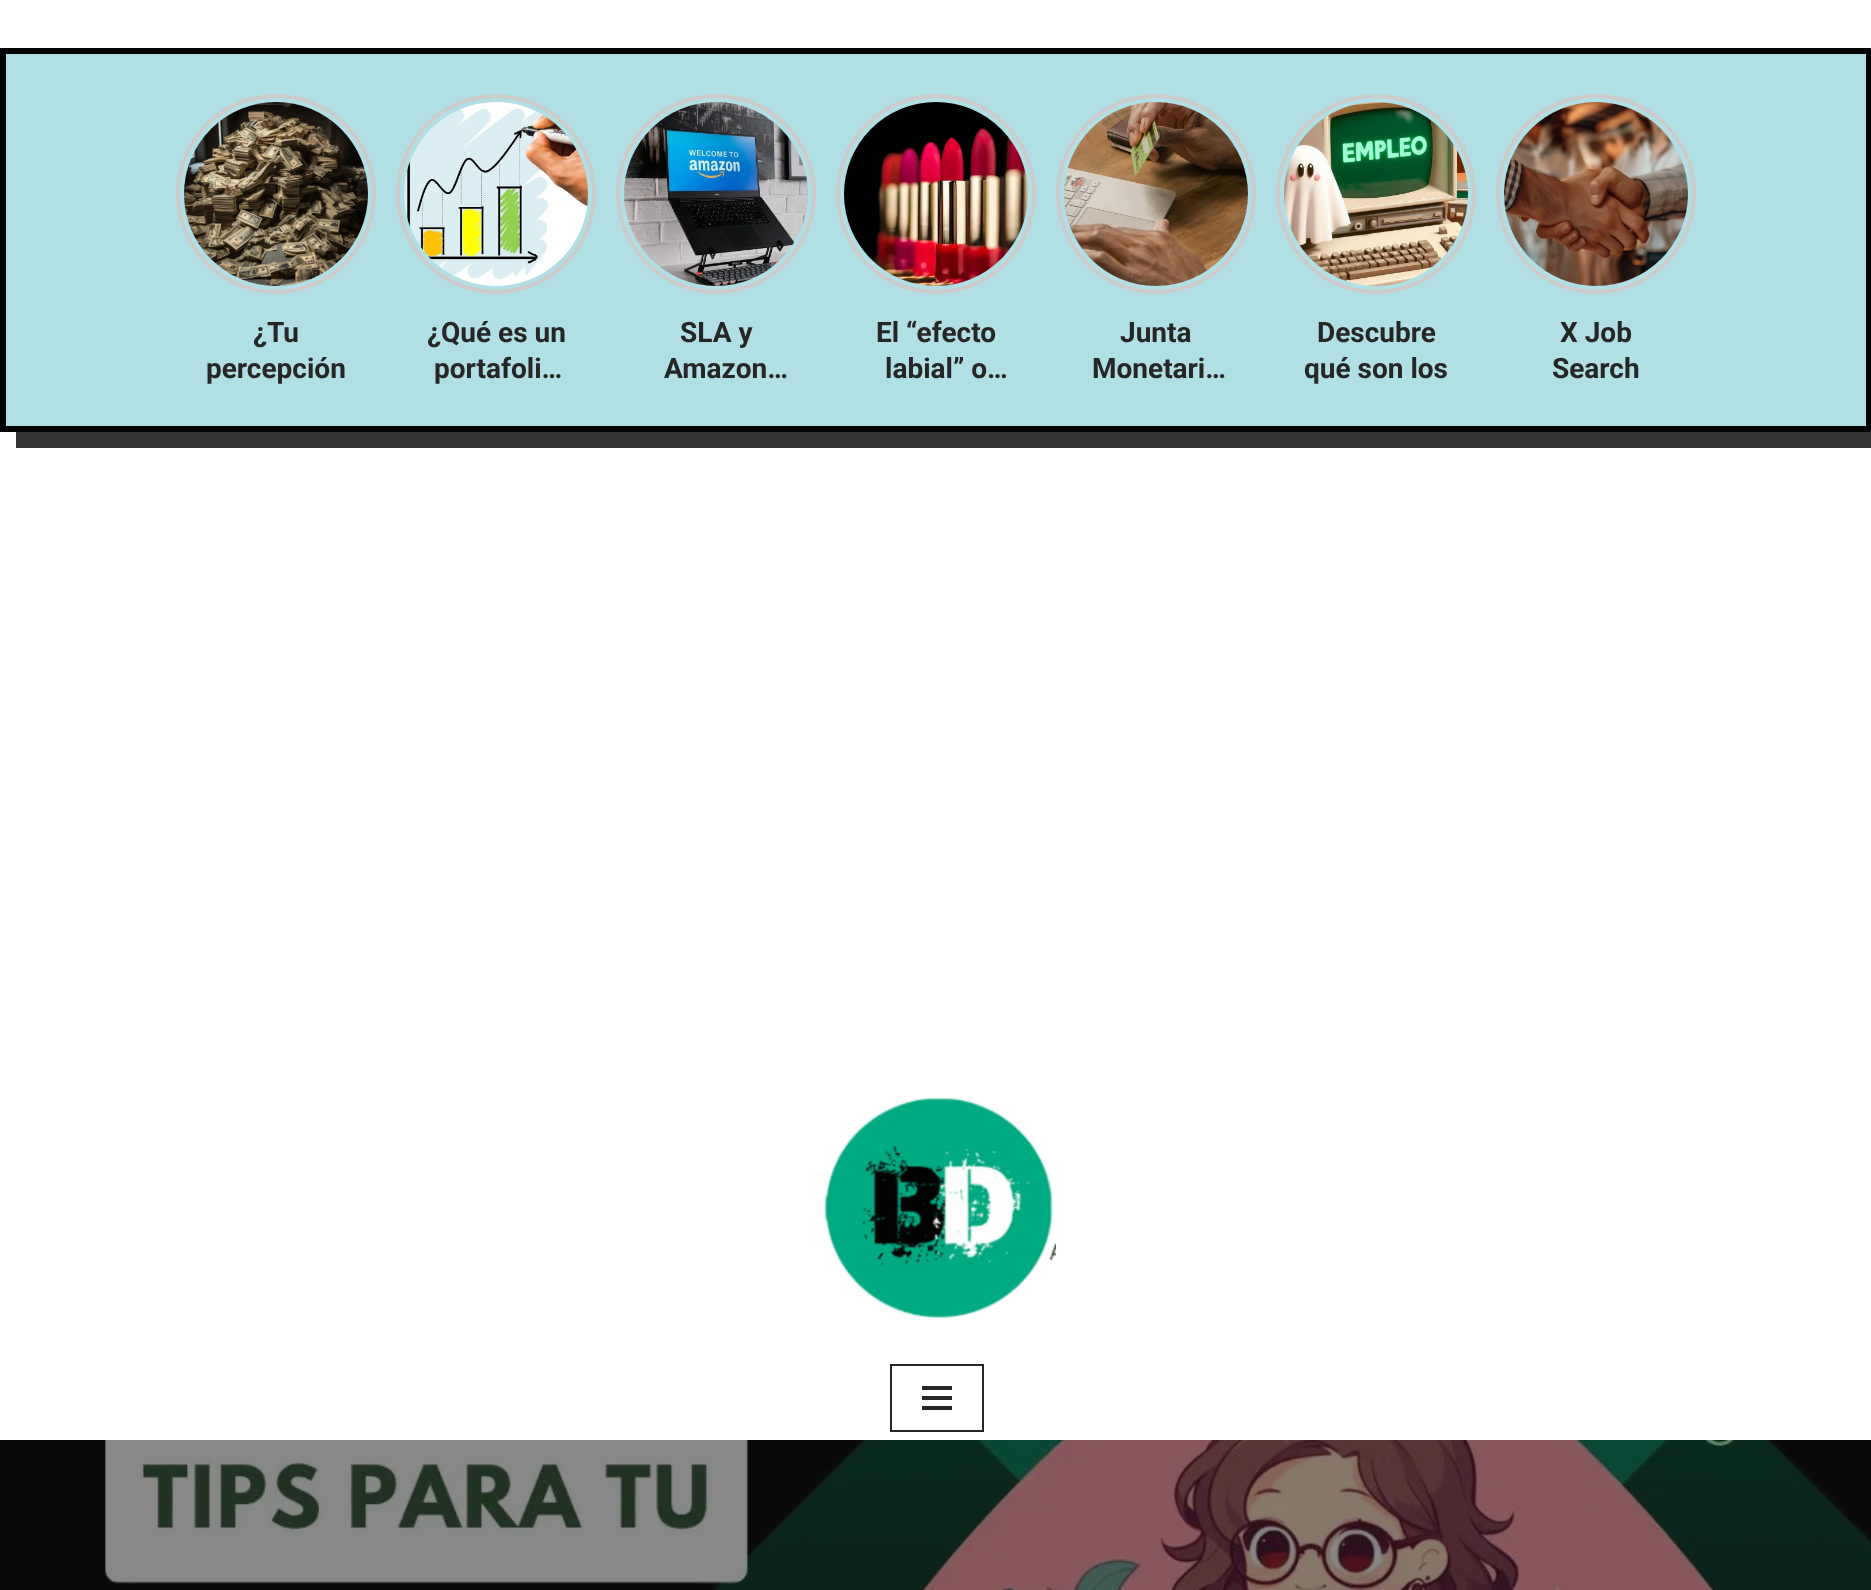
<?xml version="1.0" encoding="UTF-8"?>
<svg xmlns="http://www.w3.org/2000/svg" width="1871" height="1590">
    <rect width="100%" height="100%" fill="#FFFFFF"/>
    <path d="M 16 432 V 448 H 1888 V 64 H 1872 V 432 Z" fill="#333333"/>
    <rect x="3" y="51" width="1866" height="378" fill="#B0E0E6" stroke="#000000" stroke-width="6"/>
    <circle cx="276" cy="194" r="98" fill="none" stroke="#CCCCCC" stroke-width="4"/>
    <image x="184" y="102" width="184" height="184" href="img_01.png"/>
    <text x="253" y="342" font-family="Roboto" font-size="28" font-weight="700" fill="#272626">¿Tu</text>
    <text x="206" y="378" font-family="Roboto" font-size="28" font-weight="700" fill="#272626">percepción</text>
    <circle cx="496" cy="194" r="98" fill="none" stroke="#CCCCCC" stroke-width="4"/>
    <image x="404" y="102" width="184" height="184" href="img_02.png"/>
    <text x="427" y="342" font-family="Roboto" font-size="28" font-weight="700" fill="#272626">¿Qué es un</text>
    <text x="434" y="378" font-family="Roboto" font-size="28" font-weight="700" fill="#272626">portafoli…</text>
    <circle cx="716" cy="194" r="98" fill="none" stroke="#CCCCCC" stroke-width="4"/>
    <image x="624" y="102" width="184" height="184" href="img_03.png"/>
    <text x="680" y="342" font-family="Roboto" font-size="28" font-weight="700" fill="#272626">SLA y</text>
    <text x="664" y="378" font-family="Roboto" font-size="28" font-weight="700" fill="#272626">Amazon…</text>
    <circle cx="936" cy="194" r="98" fill="none" stroke="#CCCCCC" stroke-width="4"/>
    <image x="844" y="102" width="184" height="184" href="img_04.png"/>
    <text x="876" y="342" font-family="Roboto" font-size="28" font-weight="700" fill="#272626">El “efecto</text>
    <text x="885" y="378" font-family="Roboto" font-size="28" font-weight="700" fill="#272626">labial” o…</text>
    <circle cx="1156" cy="194" r="98" fill="none" stroke="#CCCCCC" stroke-width="4"/>
    <image x="1064" y="102" width="184" height="184" href="img_05.png"/>
    <text x="1120" y="342" font-family="Roboto" font-size="28" font-weight="700" fill="#272626">Junta</text>
    <text x="1092" y="378" font-family="Roboto" font-size="28" font-weight="700" fill="#272626">Monetari…</text>
    <circle cx="1376" cy="194" r="98" fill="none" stroke="#CCCCCC" stroke-width="4"/>
    <image x="1284" y="102" width="184" height="184" href="img_06.png"/>
    <text x="1317" y="342" font-family="Roboto" font-size="28" font-weight="700" fill="#272626">Descubre</text>
    <text x="1304" y="378" font-family="Roboto" font-size="28" font-weight="700" fill="#272626">qué son los</text>
    <circle cx="1596" cy="194" r="98" fill="none" stroke="#CCCCCC" stroke-width="4"/>
    <image x="1504" y="102" width="184" height="184" href="img_07.png"/>
    <text x="1560" y="342" font-family="Roboto" font-size="28" font-weight="700" fill="#272626">X Job</text>
    <text x="1552" y="378" font-family="Roboto" font-size="28" font-weight="700" fill="#272626">Search</text>
    <image x="824" y="1098" width="232" height="220" href="img_08.png"/>
    <rect x="891" y="1365" width="92" height="66" fill="none" stroke="#272626" stroke-width="2"/>
    <rect x="922" y="1386" width="30" height="4" fill="#272626"/>
    <rect x="922" y="1396" width="30" height="4" fill="#272626"/>
    <rect x="922" y="1406" width="30" height="4" fill="#272626"/>
    <image x="0" y="1440" width="1871" height="150" href="img_09.png"/>
</svg>
